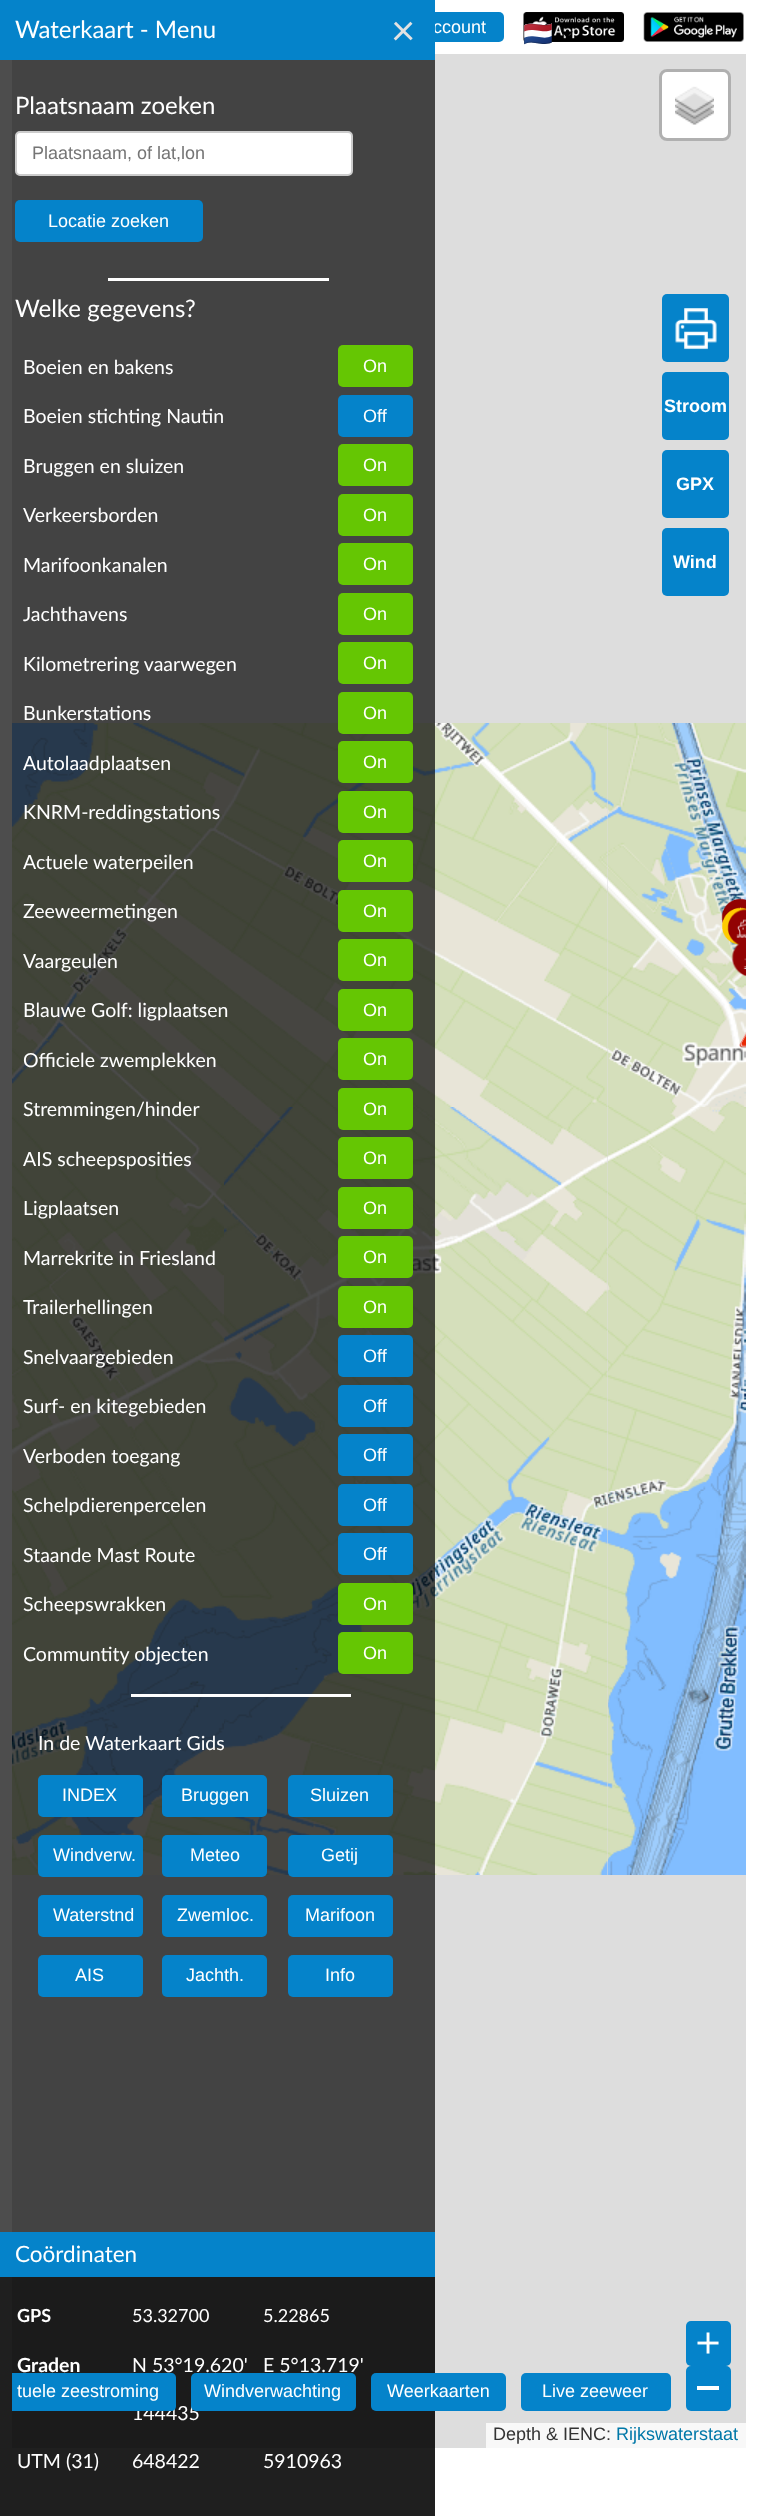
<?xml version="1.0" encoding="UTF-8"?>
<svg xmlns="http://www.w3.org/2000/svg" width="757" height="2516">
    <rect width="100%" height="100%" fill="#FFFFFF"/>
    <rect x="12" y="54" width="734" height="2394" fill="#DDDDDD"/>
    <image x="12" y="723" width="212" height="384" href="img_05.png"/>
    <image x="224" y="723" width="384" height="384" href="img_06.png"/>
    <image x="12" y="1107" width="212" height="384" href="img_08.png"/>
    <image x="224" y="1107" width="384" height="384" href="img_09.png"/>
    <image x="12" y="1491" width="212" height="384" href="img_11.png"/>
    <image x="224" y="1491" width="384" height="384" href="img_12.png"/>
    <rect x="0" y="60" width="435" height="2456" fill="#010101" fill-opacity="0.7"/>
    <rect x="404" y="12" width="100" height="30" rx="5" fill="#0583CA"/>
    <text x="433" y="33" font-family="Liberation Sans" font-size="18" fill="#FFFFFF">ccount</text>
    <rect x="0" y="0" width="435" height="60" fill="#0583CA"/>
    <text x="15" y="38" font-family="Lato" font-size="24" fill="#FFFFFF">Waterkaart - Menu</text>
    <text x="391" y="45" font-family="Lato" font-size="42" fill="#E2E2E2">×</text>
    <text x="15" y="114" font-family="Lato" font-size="24" fill="#FFFFFF">Plaatsnaam zoeken</text>
    <rect x="16" y="132" width="336" height="43" rx="4" fill="#FFFFFF" stroke="#CCCCCC" stroke-width="2"/>
    <text x="32" y="159" font-family="Liberation Sans" font-size="18" fill="#757575">Plaatsnaam, of lat,lon</text>
    <rect x="15" y="200" width="188" height="42" rx="5" fill="#0583CA"/>
    <text x="48" y="227" font-family="Liberation Sans" font-size="18" fill="#FFFFFF">Locatie zoeken</text>
    <rect x="108" y="278" width="221" height="3" fill="#FFFFFF"/>
    <text x="15" y="317" font-family="Lato" font-size="24" fill="#FFFFFF">Welke gegevens?</text>
    <text x="23" y="374" font-family="Lato" font-size="19.5" fill="#FFFFFF">Boeien en bakens</text>
    <rect x="338" y="345" width="75" height="42" rx="5" fill="#65C603"/>
    <text x="363" y="372" font-family="Liberation Sans" font-size="18" fill="#FFFFFF">On</text>
    <text x="23" y="423" font-family="Lato" font-size="19.5" fill="#FFFFFF">Boeien stichting Nautin</text>
    <rect x="338" y="395" width="75" height="42" rx="5" fill="#0583CA"/>
    <text x="363" y="422" font-family="Liberation Sans" font-size="18" fill="#FFFFFF">Off</text>
    <text x="23" y="473" font-family="Lato" font-size="19.5" fill="#FFFFFF">Bruggen en sluizen</text>
    <rect x="338" y="444" width="75" height="42" rx="5" fill="#65C603"/>
    <text x="363" y="471" font-family="Liberation Sans" font-size="18" fill="#FFFFFF">On</text>
    <text x="23" y="522" font-family="Lato" font-size="19.5" fill="#FFFFFF">Verkeersborden</text>
    <rect x="338" y="494" width="75" height="42" rx="5" fill="#65C603"/>
    <text x="363" y="521" font-family="Liberation Sans" font-size="18" fill="#FFFFFF">On</text>
    <text x="23" y="572" font-family="Lato" font-size="19.5" fill="#FFFFFF">Marifoonkanalen</text>
    <rect x="338" y="543" width="75" height="42" rx="5" fill="#65C603"/>
    <text x="363" y="570" font-family="Liberation Sans" font-size="18" fill="#FFFFFF">On</text>
    <text x="23" y="621" font-family="Lato" font-size="19.5" fill="#FFFFFF">Jachthavens</text>
    <rect x="338" y="593" width="75" height="42" rx="5" fill="#65C603"/>
    <text x="363" y="620" font-family="Liberation Sans" font-size="18" fill="#FFFFFF">On</text>
    <text x="23" y="671" font-family="Lato" font-size="19.5" fill="#FFFFFF">Kilometrering vaarwegen</text>
    <rect x="338" y="642" width="75" height="42" rx="5" fill="#65C603"/>
    <text x="363" y="669" font-family="Liberation Sans" font-size="18" fill="#FFFFFF">On</text>
    <text x="23" y="720" font-family="Lato" font-size="19.5" fill="#FFFFFF">Bunkerstations</text>
    <rect x="338" y="692" width="75" height="42" rx="5" fill="#65C603"/>
    <text x="363" y="719" font-family="Liberation Sans" font-size="18" fill="#FFFFFF">On</text>
    <text x="23" y="770" font-family="Lato" font-size="19.5" fill="#FFFFFF">Autolaadplaatsen</text>
    <rect x="338" y="741" width="75" height="42" rx="5" fill="#65C603"/>
    <text x="363" y="768" font-family="Liberation Sans" font-size="18" fill="#FFFFFF">On</text>
    <text x="23" y="819" font-family="Lato" font-size="19.5" fill="#FFFFFF">KNRM-reddingstations</text>
    <rect x="338" y="791" width="75" height="42" rx="5" fill="#65C603"/>
    <text x="363" y="818" font-family="Liberation Sans" font-size="18" fill="#FFFFFF">On</text>
    <text x="23" y="869" font-family="Lato" font-size="19.5" fill="#FFFFFF">Actuele waterpeilen</text>
    <rect x="338" y="840" width="75" height="42" rx="5" fill="#65C603"/>
    <text x="363" y="867" font-family="Liberation Sans" font-size="18" fill="#FFFFFF">On</text>
    <text x="23" y="918" font-family="Lato" font-size="19.5" fill="#FFFFFF">Zeeweermetingen</text>
    <rect x="338" y="890" width="75" height="42" rx="5" fill="#65C603"/>
    <text x="363" y="917" font-family="Liberation Sans" font-size="18" fill="#FFFFFF">On</text>
    <text x="23" y="968" font-family="Lato" font-size="19.5" fill="#FFFFFF">Vaargeulen</text>
    <rect x="338" y="939" width="75" height="42" rx="5" fill="#65C603"/>
    <text x="363" y="966" font-family="Liberation Sans" font-size="18" fill="#FFFFFF">On</text>
    <text x="23" y="1017" font-family="Lato" font-size="19.5" fill="#FFFFFF">Blauwe Golf: ligplaatsen</text>
    <rect x="338" y="989" width="75" height="42" rx="5" fill="#65C603"/>
    <text x="363" y="1016" font-family="Liberation Sans" font-size="18" fill="#FFFFFF">On</text>
    <text x="23" y="1067" font-family="Lato" font-size="19.5" fill="#FFFFFF">Officiele zwemplekken</text>
    <rect x="338" y="1038" width="75" height="42" rx="5" fill="#65C603"/>
    <text x="363" y="1065" font-family="Liberation Sans" font-size="18" fill="#FFFFFF">On</text>
    <text x="23" y="1116" font-family="Lato" font-size="19.5" fill="#FFFFFF">Stremmingen/hinder</text>
    <rect x="338" y="1088" width="75" height="42" rx="5" fill="#65C603"/>
    <text x="363" y="1115" font-family="Liberation Sans" font-size="18" fill="#FFFFFF">On</text>
    <text x="23" y="1166" font-family="Lato" font-size="19.5" fill="#FFFFFF">AIS scheepsposities</text>
    <rect x="338" y="1137" width="75" height="42" rx="5" fill="#65C603"/>
    <text x="363" y="1164" font-family="Liberation Sans" font-size="18" fill="#FFFFFF">On</text>
    <text x="23" y="1215" font-family="Lato" font-size="19.5" fill="#FFFFFF">Ligplaatsen</text>
    <rect x="338" y="1187" width="75" height="42" rx="5" fill="#65C603"/>
    <text x="363" y="1214" font-family="Liberation Sans" font-size="18" fill="#FFFFFF">On</text>
    <text x="23" y="1265" font-family="Lato" font-size="19.5" fill="#FFFFFF">Marrekrite in Friesland</text>
    <rect x="338" y="1236" width="75" height="42" rx="5" fill="#65C603"/>
    <text x="363" y="1263" font-family="Liberation Sans" font-size="18" fill="#FFFFFF">On</text>
    <text x="23" y="1314" font-family="Lato" font-size="19.5" fill="#FFFFFF">Trailerhellingen</text>
    <rect x="338" y="1286" width="75" height="42" rx="5" fill="#65C603"/>
    <text x="363" y="1313" font-family="Liberation Sans" font-size="18" fill="#FFFFFF">On</text>
    <text x="23" y="1364" font-family="Lato" font-size="19.5" fill="#FFFFFF">Snelvaargebieden</text>
    <rect x="338" y="1335" width="75" height="42" rx="5" fill="#0583CA"/>
    <text x="363" y="1362" font-family="Liberation Sans" font-size="18" fill="#FFFFFF">Off</text>
    <text x="23" y="1413" font-family="Lato" font-size="19.5" fill="#FFFFFF">Surf- en kitegebieden</text>
    <rect x="338" y="1385" width="75" height="42" rx="5" fill="#0583CA"/>
    <text x="363" y="1412" font-family="Liberation Sans" font-size="18" fill="#FFFFFF">Off</text>
    <text x="23" y="1463" font-family="Lato" font-size="19.5" fill="#FFFFFF">Verboden toegang</text>
    <rect x="338" y="1434" width="75" height="42" rx="5" fill="#0583CA"/>
    <text x="363" y="1461" font-family="Liberation Sans" font-size="18" fill="#FFFFFF">Off</text>
    <text x="23" y="1512" font-family="Lato" font-size="19.5" fill="#FFFFFF">Schelpdierenpercelen</text>
    <rect x="338" y="1484" width="75" height="42" rx="5" fill="#0583CA"/>
    <text x="363" y="1511" font-family="Liberation Sans" font-size="18" fill="#FFFFFF">Off</text>
    <text x="23" y="1562" font-family="Lato" font-size="19.5" fill="#FFFFFF">Staande Mast Route</text>
    <rect x="338" y="1533" width="75" height="42" rx="5" fill="#0583CA"/>
    <text x="363" y="1560" font-family="Liberation Sans" font-size="18" fill="#FFFFFF">Off</text>
    <text x="23" y="1611" font-family="Lato" font-size="19.5" fill="#FFFFFF">Scheepswrakken</text>
    <rect x="338" y="1583" width="75" height="42" rx="5" fill="#65C603"/>
    <text x="363" y="1610" font-family="Liberation Sans" font-size="18" fill="#FFFFFF">On</text>
    <text x="23" y="1661" font-family="Lato" font-size="19.5" fill="#FFFFFF">Communtity objecten</text>
    <rect x="338" y="1632" width="75" height="42" rx="5" fill="#65C603"/>
    <text x="363" y="1659" font-family="Liberation Sans" font-size="18" fill="#FFFFFF">On</text>
    <rect x="131" y="1694" width="220" height="3" fill="#FFFFFF"/>
    <text x="38" y="1750" font-family="Lato" font-size="19.5" fill="#FFFFFF">In de Waterkaart Gids</text>
    <rect x="38" y="1775" width="105" height="42" rx="5" fill="#0583CA"/>
    <text x="62" y="1801" font-family="Liberation Sans" font-size="18" fill="#FFFFFF">INDEX</text>
    <rect x="162" y="1775" width="105" height="42" rx="5" fill="#0583CA"/>
    <text x="181" y="1801" font-family="Liberation Sans" font-size="18" fill="#FFFFFF">Bruggen</text>
    <rect x="288" y="1775" width="105" height="42" rx="5" fill="#0583CA"/>
    <text x="310" y="1801" font-family="Liberation Sans" font-size="18" fill="#FFFFFF">Sluizen</text>
    <rect x="38" y="1835" width="105" height="42" rx="5" fill="#0583CA"/>
    <text x="53" y="1861" font-family="Liberation Sans" font-size="18" fill="#FFFFFF">Windverw.</text>
    <rect x="162" y="1835" width="105" height="42" rx="5" fill="#0583CA"/>
    <text x="190" y="1861" font-family="Liberation Sans" font-size="18" fill="#FFFFFF">Meteo</text>
    <rect x="288" y="1835" width="105" height="42" rx="5" fill="#0583CA"/>
    <text x="321" y="1861" font-family="Liberation Sans" font-size="18" fill="#FFFFFF">Getij</text>
    <rect x="38" y="1895" width="105" height="42" rx="5" fill="#0583CA"/>
    <text x="53" y="1921" font-family="Liberation Sans" font-size="18" fill="#FFFFFF">Waterstnd</text>
    <rect x="162" y="1895" width="105" height="42" rx="5" fill="#0583CA"/>
    <text x="177" y="1921" font-family="Liberation Sans" font-size="18" fill="#FFFFFF">Zwemloc.</text>
    <rect x="288" y="1895" width="105" height="42" rx="5" fill="#0583CA"/>
    <text x="305" y="1921" font-family="Liberation Sans" font-size="18" fill="#FFFFFF">Marifoon</text>
    <rect x="38" y="1955" width="105" height="42" rx="5" fill="#0583CA"/>
    <text x="75" y="1981" font-family="Liberation Sans" font-size="18" fill="#FFFFFF">AIS</text>
    <rect x="162" y="1955" width="105" height="42" rx="5" fill="#0583CA"/>
    <text x="186" y="1981" font-family="Liberation Sans" font-size="18" fill="#FFFFFF">Jachth.</text>
    <rect x="288" y="1955" width="105" height="42" rx="5" fill="#0583CA"/>
    <text x="325" y="1981" font-family="Liberation Sans" font-size="18" fill="#FFFFFF">Info</text>
    <rect x="0" y="2232" width="435" height="45" fill="#0583CA"/>
    <text x="15" y="2262" font-family="Lato" font-size="22.5" fill="#FFFFFF">Coördinaten</text>
    <rect x="0" y="2277" width="435" height="239" fill="#010101" fill-opacity="0.6"/>
    <text x="17" y="2322" font-family="Lato" font-size="18" font-weight="700" fill="#FFFFFF">GPS</text>
    <text x="132" y="2322" font-family="Lato" font-size="18" fill="#FFFFFF">53.32700</text>
    <text x="263" y="2322" font-family="Lato" font-size="18" fill="#FFFFFF">5.22865</text>
    <text x="17" y="2372" font-family="Lato" font-size="19.5" font-weight="700" fill="#FFFFFF">Graden</text>
    <text x="132" y="2372" font-family="Lato" font-size="19.5" fill="#FFFFFF">N 53°19.620'</text>
    <text x="263" y="2372" font-family="Lato" font-size="19.5" fill="#FFFFFF">E 5°13.719'</text>
    <text x="132" y="2420" font-family="Lato" font-size="19.5" fill="#FFFFFF">144435</text>
    <text x="17" y="2468" font-family="Lato" font-size="19.5" fill="#FFFFFF">UTM (31)</text>
    <text x="132" y="2468" font-family="Lato" font-size="19.5" fill="#FFFFFF">648422</text>
    <text x="263" y="2468" font-family="Lato" font-size="19.5" fill="#FFFFFF">5910963</text>
    <image x="523" y="12" width="101" height="30" href="img_01.png"/>
    <image x="643" y="12" width="101" height="30" href="img_02.png"/>
    <text x="523" y="42" font-family="Noto Color Emoji" font-size="24" fill="#333333">🇳🇱</text>
    <path d="M 561 31.5 H 573 L 567 37.5 Z" fill="#000000"/>
    <rect x="662" y="294" width="67" height="68" rx="5" fill="#0583CA"/>
    <image x="675" y="308" width="42" height="42" href="img_03.png"/>
    <rect x="662" y="372" width="67" height="68" rx="5" fill="#0583CA"/>
    <text x="664" y="412" font-family="Liberation Sans" font-size="18" font-weight="700" fill="#FFFFFF">Stroom</text>
    <rect x="662" y="450" width="67" height="68" rx="5" fill="#0583CA"/>
    <text x="676" y="490" font-family="Liberation Sans" font-size="18" font-weight="700" fill="#FFFFFF">GPX</text>
    <rect x="662" y="528" width="67" height="68" rx="5" fill="#0583CA"/>
    <text x="673" y="568" font-family="Liberation Sans" font-size="18" font-weight="700" fill="#FFFFFF">Wind</text>
    <rect x="686" y="2321" width="45" height="45" rx="5" fill="#0583CA"/>
    <image x="697" y="2332" width="22" height="22" href="img_04.png"/>
    <rect x="686" y="2366" width="45" height="45" rx="5" fill="#0583CA"/>
    <rect x="697" y="2386" width="22" height="4" fill="#FFFFFF"/>
    <image x="608" y="723" width="138" height="384" href="img_07.png"/>
    <image x="608" y="1107" width="138" height="384" href="img_10.png"/>
    <image x="608" y="1491" width="138" height="384" href="img_13.png"/>
    <image x="721" y="898" width="25" height="26" href="img_14.png"/>
    <image x="722" y="907" width="24" height="38" href="img_15.png"/>
    <image x="727" y="908" width="19" height="38" href="img_16.png"/>
    <image x="731" y="943" width="15" height="34" href="img_17.png"/>
    <image x="738" y="951" width="8" height="25" href="img_18.png"/>
    <image x="739" y="1032" width="7" height="17" href="img_19.png"/>
    <path d="M 12 2373 H 171 C 174 2373 176 2375 176 2378 V 2406 C 176 2409 174 2411 171 2411 H 12 Z" fill="#0583CA"/>
    <text x="17" y="2397" font-family="Liberation Sans" font-size="18" fill="#FFFFFF">tuele zeestroming</text>
    <rect x="191" y="2373" width="165" height="38" rx="5" fill="#0583CA"/>
    <text x="204" y="2397" font-family="Liberation Sans" font-size="18" fill="#FFFFFF">Windverwachting</text>
    <rect x="371" y="2373" width="135" height="38" rx="5" fill="#0583CA"/>
    <text x="387" y="2397" font-family="Liberation Sans" font-size="18" fill="#FFFFFF">Weerkaarten</text>
    <rect x="521" y="2373" width="150" height="38" rx="5" fill="#0583CA"/>
    <text x="542" y="2397" font-family="Liberation Sans" font-size="18" fill="#FFFFFF">Live zeeweer</text>
    <rect x="662" y="72" width="66" height="66" rx="5" fill="#FFFFFF"/>
    <rect x="660.5" y="70.5" width="69" height="69" rx="6.5" fill="none" stroke="#000000" stroke-opacity="0.2" stroke-width="3"/>
    <image x="675" y="86" width="39" height="39" href="img_20.png"/>
    <rect x="486" y="2423" width="260" height="25" fill="#F8F8F8"/>
    <text x="493" y="2440" font-family="Liberation Sans" font-size="18" fill="#333333">Depth &amp; IENC:</text>
    <text x="616" y="2440" font-family="Liberation Sans" font-size="18" fill="#0078A8">Rijkswaterstaat</text>
</svg>
